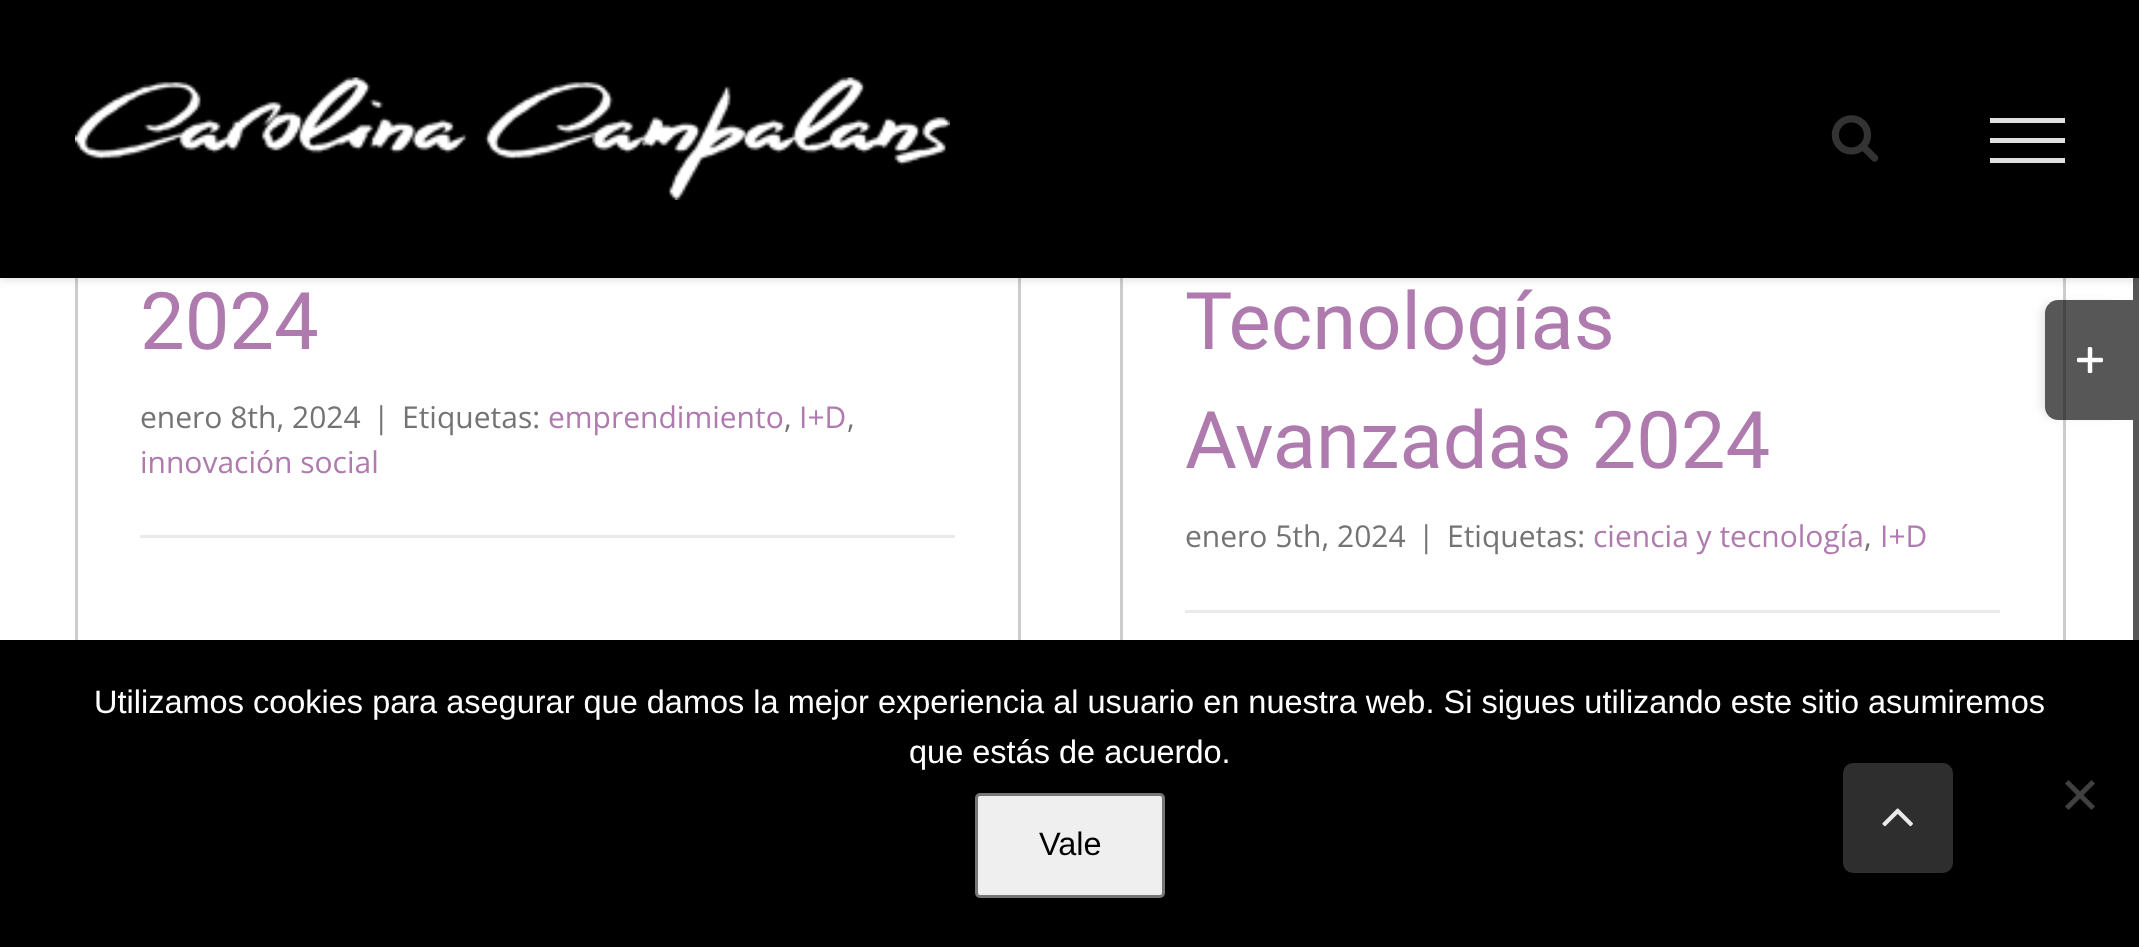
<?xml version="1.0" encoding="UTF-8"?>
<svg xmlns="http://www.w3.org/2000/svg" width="2139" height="947">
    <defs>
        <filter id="blur1" x="-50%" y="-200%" width="200%" height="500%"><feGaussianBlur stdDeviation="4"/></filter>
        <clipPath id="clip1"><path d="M 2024 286 H 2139 V 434 H 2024 Z M 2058 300 H 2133 V 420 H 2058 C 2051 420 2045 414 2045 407 V 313 C 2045 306 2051 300 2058 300 Z" clip-rule="evenodd"/></clipPath>
        <filter id="blur2" x="-50%" y="-200%" width="200%" height="500%"><feGaussianBlur stdDeviation="6"/></filter>
    </defs>
    <rect width="100%" height="100%" fill="#FFFFFF"/>
    <rect x="1018" y="278" width="3" height="362" fill="#CCCCCC"/>
    <rect x="75" y="278" width="3" height="362" fill="#CCCCCC"/>
    <rect x="2063" y="278" width="3" height="362" fill="#CCCCCC"/>
    <rect x="1120" y="278" width="3" height="362" fill="#CCCCCC"/>
    <rect x="0" y="3" width="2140" height="277" fill="#000000" fill-opacity="0.12" filter="url(#blur1)"/>
    <rect x="0" y="0" width="2139" height="278" fill="#000000"/>
    <image x="75" y="77" width="875" height="123" href="img_01.png"/>
    <image x="1831" y="115" width="48" height="47" href="img_02.png"/>
    <rect x="1990" y="118" width="75" height="5" fill="#E0E0E0"/>
    <rect x="1990" y="138" width="75" height="5" fill="#E0E0E0"/>
    <rect x="1990" y="158" width="75" height="5" fill="#E0E0E0"/>
    <text x="140" y="349" font-family="Roboto" font-size="79.5" fill="#AF7BAF">2024</text>
    <text x="140" y="428" font-family="Open Sans" font-size="30" fill="#747474">enero 8th, 2024</text>
    <text x="373" y="428" font-family="Open Sans" font-size="30" fill="#747474">|</text>
    <text x="402" y="428" font-family="Open Sans" font-size="30" fill="#747474">Etiquetas:</text>
    <text x="548" y="428" font-family="Open Sans" font-size="30" fill="#AF7BAF">emprendimiento</text>
    <text x="784" y="428" font-family="Open Sans" font-size="30" fill="#747474">,</text>
    <text x="799" y="428" font-family="Open Sans" font-size="30" fill="#AF7BAF">I+D</text>
    <text x="847" y="428" font-family="Open Sans" font-size="30" fill="#747474">,</text>
    <text x="140" y="473" font-family="Open Sans" font-size="30" fill="#AF7BAF">innovación social</text>
    <rect x="140" y="535" width="815" height="3" fill="#EBEAEA"/>
    <text font-family="Roboto" font-size="79.5" fill="#AF7BAF">
        <tspan x="1185" y="349">Tecnologías</tspan>
        <tspan x="1185" y="468">Avanzadas 2024</tspan>
    </text>
    <text x="1185" y="547" font-family="Open Sans" font-size="30" fill="#747474">enero 5th, 2024</text>
    <text x="1418" y="547" font-family="Open Sans" font-size="30" fill="#747474">|</text>
    <text x="1447" y="547" font-family="Open Sans" font-size="30" fill="#747474">Etiquetas:</text>
    <text x="1593" y="547" font-family="Open Sans" font-size="30" fill="#AF7BAF">ciencia y tecnología</text>
    <text x="1864" y="547" font-family="Open Sans" font-size="30" fill="#747474">,</text>
    <text x="1880" y="547" font-family="Open Sans" font-size="30" fill="#AF7BAF">I+D</text>
    <rect x="1185" y="610" width="815" height="3" fill="#EBEAEA"/>
    <g clip-path="url(#clip1)">
        <rect x="2043" y="305" width="77" height="110" rx="8" fill="#000000" fill-opacity="0.14" filter="url(#blur2)"/>
    </g>
    <rect x="2133" y="278" width="6" height="362" fill="#000000" fill-opacity="0.66"/>
    <path d="M 2058 300 H 2133 V 420 H 2058 C 2051 420 2045 414 2045 407 V 313 C 2045 306 2051 300 2058 300 Z" fill="#000000" fill-opacity="0.66"/>
    <image x="2077" y="347" width="26" height="27" href="img_03.png"/>
    <rect x="0" y="640" width="2139" height="307" fill="#000000"/>
    <text x="94" y="713" font-family="Liberation Sans" font-size="32.5" fill="#FFFFFF">Utilizamos cookies para asegurar que damos la mejor experiencia al usuario en nuestra web. Si sigues utilizando este sitio asumiremos</text>
    <text x="909" y="763" font-family="Liberation Sans" font-size="32.5" fill="#FFFFFF">que estás de acuerdo.</text>
    <path d="M 2091.5 780 L 2095 783.5 L 2068.5 810 L 2065 806.5 Z" fill="#404040"/>
    <path d="M 2065 783.5 L 2068.5 780 L 2095 806.5 L 2091.5 810 Z" fill="#404040"/>
    <rect x="976.5" y="794.5" width="187" height="102" rx="3.5" fill="#EFEFEF" stroke="#767676" stroke-width="3"/>
    <text x="1039" y="855" font-family="Liberation Sans" font-size="32.5" fill="#000000">Vale</text>
    <rect x="1843" y="763" width="110" height="110" rx="10" fill="#2E2E2E"/>
    <image x="1882" y="808" width="31" height="19" href="img_04.png"/>
</svg>
